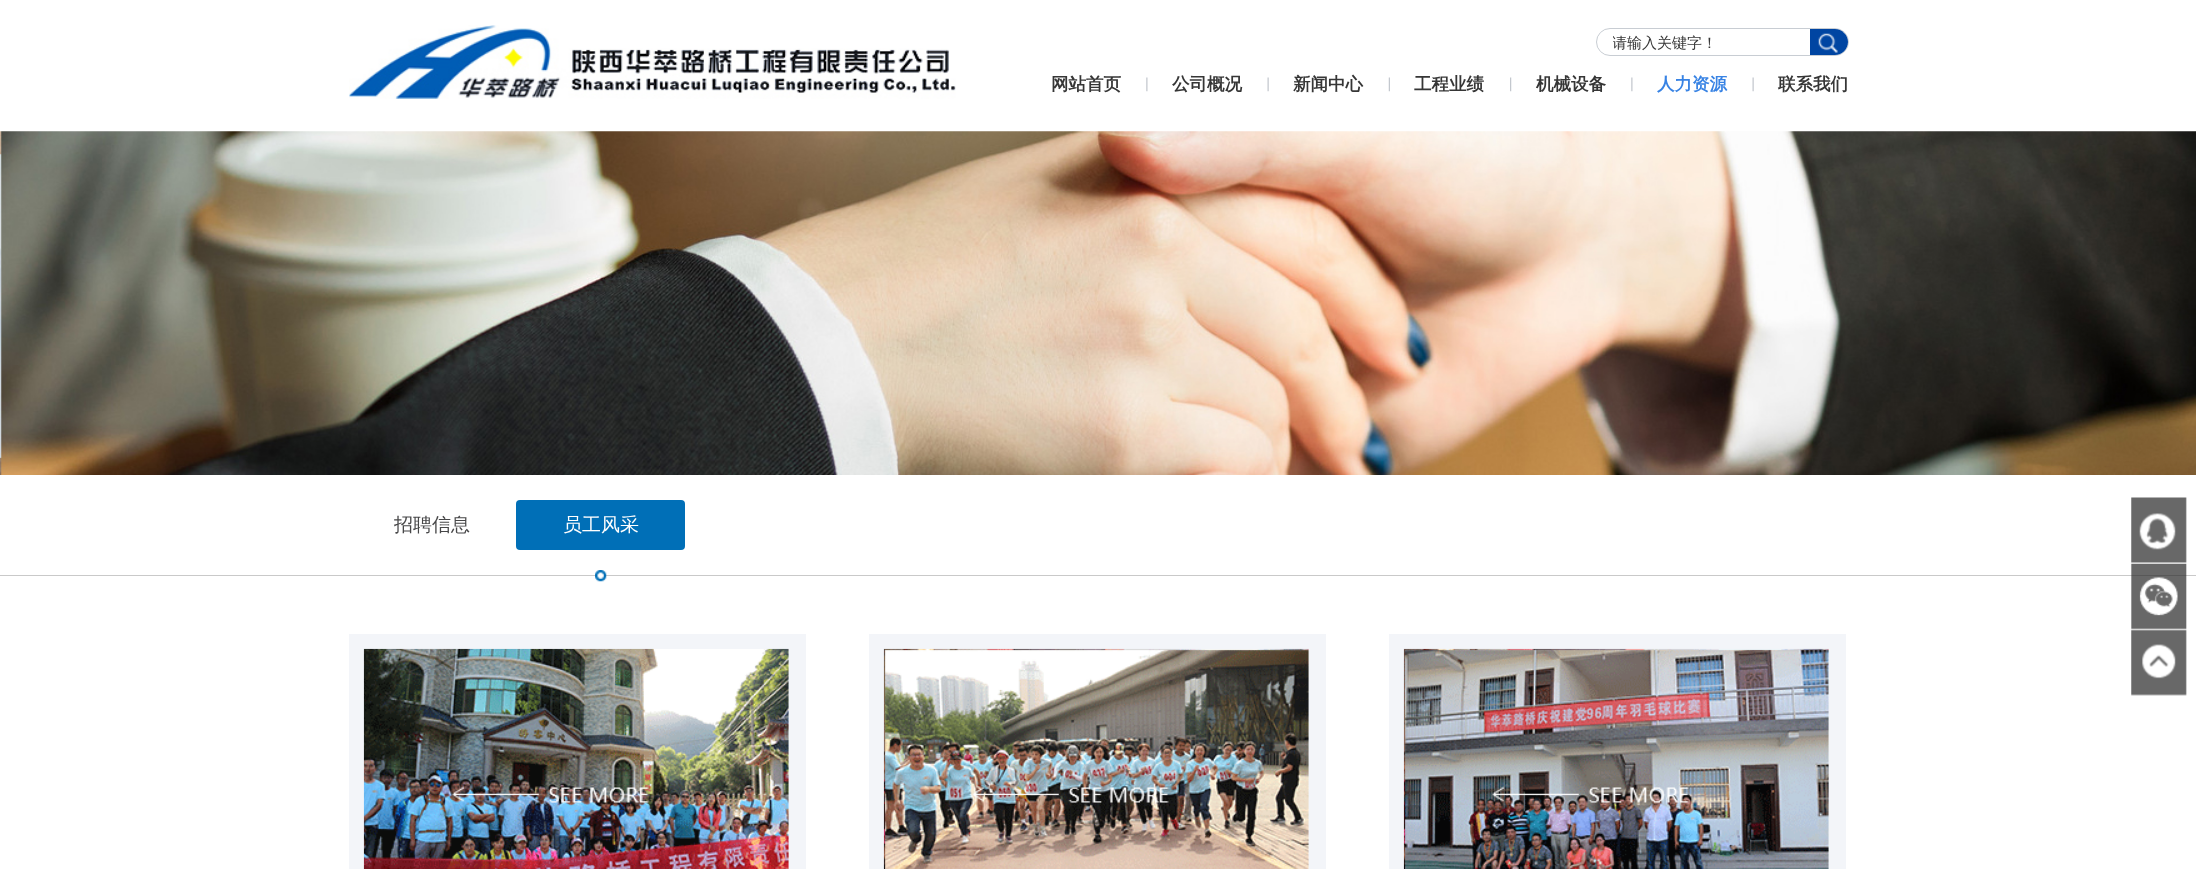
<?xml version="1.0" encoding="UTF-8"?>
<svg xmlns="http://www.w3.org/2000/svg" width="2196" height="869">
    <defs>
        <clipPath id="clip1"><rect x="1613" y="33" width="182" height="21"/></clipPath>
    </defs>
    <rect width="100%" height="100%" fill="#FFFFFF"/>
    <image x="349" y="25" width="607" height="74" href="img_01.png"/>
    <rect x="1596.5" y="28.5" width="252" height="27" rx="13.5" fill="none" stroke="#C8CDD3"/>
    <g clip-path="url(#clip1)">
        <text x="1612" y="48" font-family="WenQuanYi Zen Hei" font-size="15" font-weight="500" fill="#363636">请输入关键字！</text>
    </g>
    <path d="M 1810 29 H 1835 C 1842 29 1848 35 1848 42 C 1848 49 1842 55 1835 55 H 1810 Z" fill="#0045A2"/>
    <image x="1818" y="33" width="20" height="20" href="img_02.png"/>
    <text x="1051" y="90" font-family="WenQuanYi Zen Hei" font-size="17.5" font-weight="700" fill="#363636">网站首页</text>
    <image x="1146" y="77" width="2" height="15" href="img_03.png"/>
    <text x="1172" y="90" font-family="WenQuanYi Zen Hei" font-size="17.5" font-weight="700" fill="#363636">公司概况</text>
    <image x="1267" y="77" width="2" height="15" href="img_04.png"/>
    <text x="1293" y="90" font-family="WenQuanYi Zen Hei" font-size="17.5" font-weight="700" fill="#363636">新闻中心</text>
    <image x="1388" y="77" width="2" height="15" href="img_05.png"/>
    <text x="1414" y="90" font-family="WenQuanYi Zen Hei" font-size="17.5" font-weight="700" fill="#363636">工程业绩</text>
    <image x="1510" y="77" width="2" height="15" href="img_06.png"/>
    <text x="1536" y="90" font-family="WenQuanYi Zen Hei" font-size="17.5" font-weight="700" fill="#363636">机械设备</text>
    <image x="1631" y="77" width="2" height="15" href="img_03.png"/>
    <text x="1657" y="90" font-family="WenQuanYi Zen Hei" font-size="17.5" font-weight="700" fill="#3883E4">人力资源</text>
    <image x="1752" y="77" width="2" height="15" href="img_04.png"/>
    <text x="1778" y="90" font-family="WenQuanYi Zen Hei" font-size="17.5" font-weight="700" fill="#363636">联系我们</text>
    <image x="0" y="131" width="2196" height="344" href="img_07.png"/>
    <rect x="0" y="575" width="2196" height="1" fill="#C9C9C9"/>
    <text x="394" y="531" font-family="WenQuanYi Zen Hei" font-size="19" font-weight="500" fill="#474748">招聘信息</text>
    <rect x="516" y="500" width="169" height="50" rx="4" fill="#006FB7"/>
    <text x="563" y="531" font-family="WenQuanYi Zen Hei" font-size="19" font-weight="500" fill="#FFFFFF">员工风采</text>
    <image x="595" y="570" width="12" height="12" href="img_08.png"/>
    <image x="2131" y="497" width="56" height="66" href="img_09.png"/>
    <image x="2131" y="563" width="56" height="66" href="img_10.png"/>
    <image x="2131" y="629" width="56" height="67" href="img_11.png"/>
    <rect x="349" y="634" width="457" height="235" fill="#F3F5F9"/>
    <image x="363" y="648" width="426" height="221" href="img_12.png"/>
    <image x="452" y="786" width="197" height="17" href="img_13.png"/>
    <rect x="869" y="634" width="457" height="235" fill="#F3F5F9"/>
    <image x="883" y="648" width="426" height="221" href="img_14.png"/>
    <image x="972" y="786" width="197" height="17" href="img_15.png"/>
    <rect x="1389" y="634" width="457" height="235" fill="#F3F5F9"/>
    <image x="1403" y="648" width="426" height="221" href="img_16.png"/>
    <image x="1492" y="786" width="197" height="17" href="img_17.png"/>
</svg>
